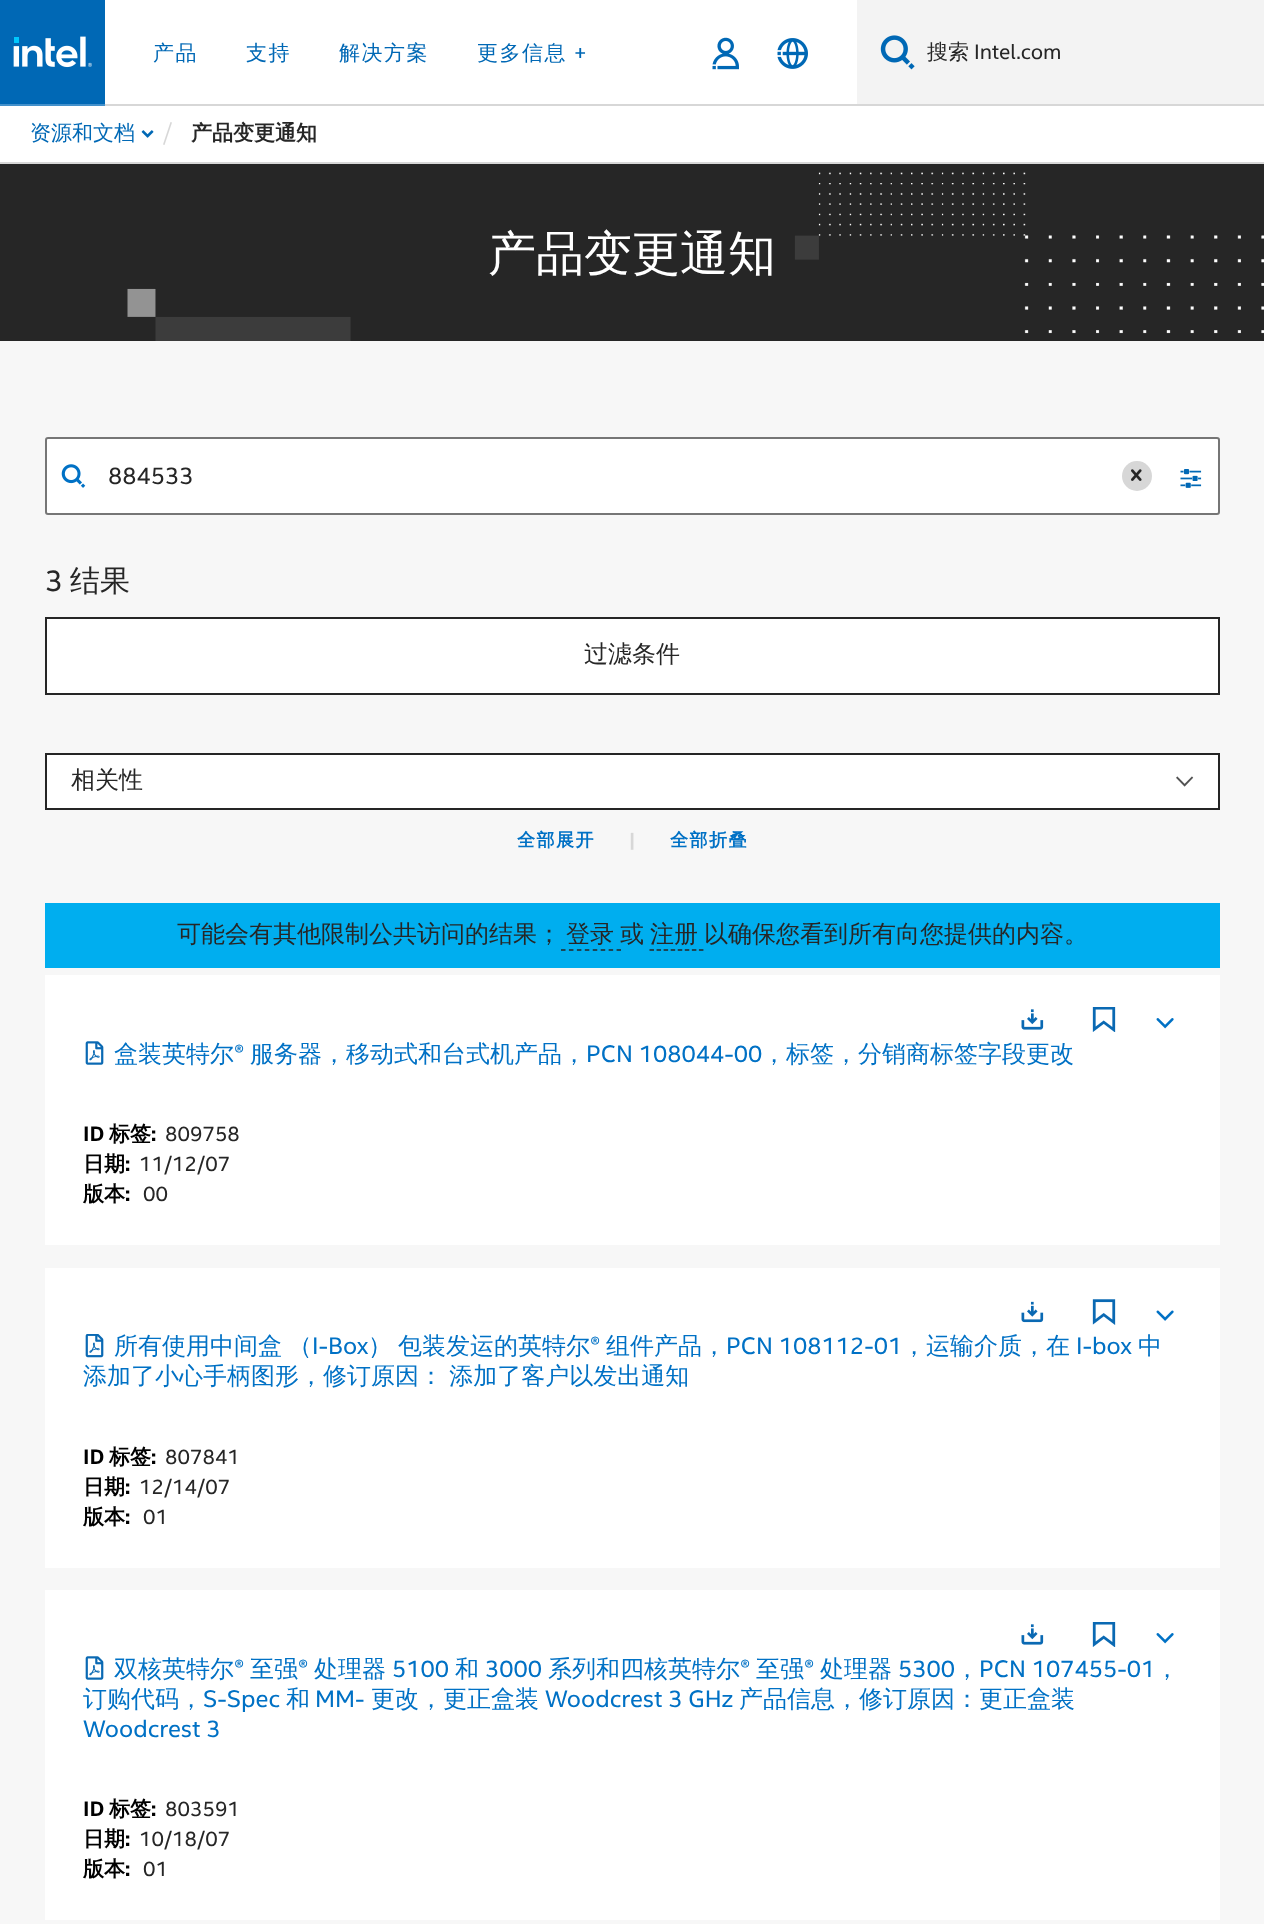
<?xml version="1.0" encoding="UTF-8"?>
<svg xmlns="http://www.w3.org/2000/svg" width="1264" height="1924">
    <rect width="100%" height="100%" fill="#FFFFFF"/>
    <rect x="105" y="104" width="1159" height="2" fill="#D7D7D7"/>
    <rect x="0" y="0" width="105" height="104" fill="#0068B5"/>
    <image x="13" y="36" width="79" height="32" href="img_01.png"/>
    <rect x="0" y="104" width="105" height="2" fill="#4290CB"/>
    <text x="153" y="60" font-family="WenQuanYi Zen Hei" font-size="21" font-weight="500" letter-spacing="1.5" fill="#0068B5">产品</text>
    <text x="246" y="60" font-family="WenQuanYi Zen Hei" font-size="21" font-weight="500" letter-spacing="1.5" fill="#0068B5">支持</text>
    <text x="339" y="60" font-family="WenQuanYi Zen Hei" font-size="21" font-weight="500" letter-spacing="1.5" fill="#0068B5">解决方案</text>
    <text x="477" y="60" font-family="WenQuanYi Zen Hei" font-size="21" font-weight="500" letter-spacing="1.5" fill="#0068B5">更多信息</text>
    <text x="574" y="60" font-family="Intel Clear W" font-size="21" letter-spacing="1.5" fill="#0068B5">+</text>
    <image x="712" y="37" width="27" height="33" href="img_02.png"/>
    <image x="777" y="38" width="31" height="31" href="img_03.png"/>
    <rect x="857" y="0" width="407" height="104" fill="#F3F3F3"/>
    <image x="880" y="35" width="35" height="35" href="img_04.png"/>
    <text x="927" y="59" font-family="WenQuanYi Zen Hei" font-size="21" font-weight="500" fill="#262626">搜索</text>
    <text x="974" y="59" font-family="Intel Clear W" font-size="21" fill="#262626">Intel.com</text>
    <rect x="0" y="162" width="1264" height="2" fill="#D7D7D7"/>
    <text x="30" y="140" font-family="WenQuanYi Zen Hei" font-size="21" font-weight="500" fill="#0068B5">资源和文档</text>
    <image x="141" y="130" width="13" height="8" href="img_05.png"/>
    <path d="M 170.5 122 L 172 122.5 L 164.5 145 L 163 144.5 Z" fill="#D7D7D7"/>
    <text x="191" y="140" font-family="WenQuanYi Zen Hei" font-size="21" font-weight="700" fill="#262626">产品变更通知</text>
    <rect x="0" y="164" width="1264" height="177" fill="#262626"/>
    <image x="127" y="172" width="1137" height="169" href="img_06.png"/>
    <text x="488" y="270" font-family="WenQuanYi Zen Hei" font-size="48" font-weight="500" fill="#FFFFFF">产品变更通知</text>
    <rect x="0" y="341" width="1264" height="1583" fill="#F7F7F7"/>
    <rect x="46" y="438" width="1173" height="76" rx="2" fill="#FFFFFF" stroke="#767676" stroke-width="2"/>
    <image x="61" y="464" width="25" height="24" href="img_07.png"/>
    <text x="108" y="484" font-family="Intel Clear W" font-size="24" fill="#262626">884533</text>
    <circle cx="1137" cy="476" r="15" fill="#D7D7D7"/>
    <image x="1131" y="469" width="11" height="12" href="img_08.png"/>
    <image x="1180" y="469" width="22" height="19" href="img_09.png"/>
    <text x="45" y="591" font-family="Intel Clear W" font-size="30" fill="#262626">3</text>
    <text x="70" y="591" font-family="WenQuanYi Zen Hei" font-size="30" font-weight="500" fill="#262626">结果</text>
    <rect x="46" y="618" width="1173" height="76" fill="#FFFFFF" stroke="#262626" stroke-width="2"/>
    <text x="584" y="662" font-family="WenQuanYi Zen Hei" font-size="24" font-weight="500" fill="#262626">过滤条件</text>
    <rect x="47" y="755" width="1171" height="53" fill="#FFFFFF"/>
    <image x="1176" y="776" width="18" height="11" href="img_10.png"/>
    <rect x="46" y="754" width="1173" height="55" fill="none" stroke="#252525" stroke-width="2"/>
    <text x="71" y="788" font-family="WenQuanYi Zen Hei" font-size="24" font-weight="500" fill="#262626">相关性</text>
    <text x="517" y="846" font-family="WenQuanYi Zen Hei" font-size="18" font-weight="700" letter-spacing="1.5" fill="#0071C5">全部展开</text>
    <text x="629" y="846" font-family="Intel Clear W" font-size="18" font-weight="700" fill="#D7D7D7">|</text>
    <text x="670" y="846" font-family="WenQuanYi Zen Hei" font-size="18" font-weight="700" letter-spacing="1.5" fill="#0071C5">全部折叠</text>
    <rect x="45" y="903" width="1175" height="65" fill="#00AEEF"/>
    <text x="177" y="942" font-family="WenQuanYi Zen Hei" font-size="24" font-weight="500" fill="#262626">可能会有其他限制公共访问的结果；</text>
    <text x="566" y="942" font-family="WenQuanYi Zen Hei" font-size="24" font-weight="500" fill="#262626">登录</text>
    <path d="M 561 950 H 621" fill="none" stroke="#262626" stroke-width="1.5" stroke-dasharray="4.5 3.44"/>
    <text x="620" y="942" font-family="WenQuanYi Zen Hei" font-size="24" font-weight="500" fill="#262626">或</text>
    <text x="650" y="942" font-family="WenQuanYi Zen Hei" font-size="24" font-weight="500" fill="#262626">注册</text>
    <path d="M 649.5 950 H 703.5" fill="none" stroke="#262626" stroke-width="1.5" stroke-dasharray="4.5 2.56"/>
    <text x="704" y="942" font-family="WenQuanYi Zen Hei" font-size="24" font-weight="500" fill="#262626">以确保您看到所有向您提供的内容。</text>
    <rect x="45" y="975" width="1175" height="270" fill="#FFFFFF"/>
    <image x="1021" y="1009" width="23" height="21" href="img_11.png"/>
    <image x="1092" y="1007" width="24" height="25" href="img_12.png"/>
    <image x="1156" y="1018" width="18" height="11" href="img_13.png"/>
    <image x="85" y="1041" width="19" height="24" href="img_14.png"/>
    <text x="114" y="1062" font-family="WenQuanYi Zen Hei" font-size="24" font-weight="500" fill="#0071C5">盒装英特尔</text>
    <text x="234" y="1062" font-family="Intel Clear W" font-size="24" fill="#0071C5">®</text>
    <text x="250" y="1062" font-family="WenQuanYi Zen Hei" font-size="24" font-weight="500" fill="#0071C5">服务器，移动式和台式机产品，</text>
    <text x="586" y="1062" font-family="Intel Clear W" font-size="24" fill="#0071C5">PCN 108044-00</text>
    <text x="762" y="1062" font-family="WenQuanYi Zen Hei" font-size="24" font-weight="500" fill="#0071C5">，标签，分销商标签字段更改</text>
    <text x="83" y="1141" font-family="Intel Clear W" font-size="21" font-weight="700" fill="#000000">ID</text>
    <text x="109" y="1141" font-family="WenQuanYi Zen Hei" font-size="21" font-weight="700" fill="#000000">标签</text>
    <text x="151" y="1141" font-family="Intel Clear W" font-size="21" font-weight="700" fill="#000000">:</text>
    <text x="165" y="1141" font-family="Intel Clear W" font-size="21" fill="#262626">809758</text>
    <text x="83" y="1171" font-family="WenQuanYi Zen Hei" font-size="21" font-weight="700" fill="#000000">日期</text>
    <text x="125" y="1171" font-family="Intel Clear W" font-size="21" font-weight="700" fill="#000000">:</text>
    <text x="139" y="1171" font-family="Intel Clear W" font-size="21" fill="#262626">11/12/07</text>
    <text x="83" y="1201" font-family="WenQuanYi Zen Hei" font-size="21" font-weight="700" fill="#000000">版本</text>
    <text x="125" y="1201" font-family="Intel Clear W" font-size="21" font-weight="700" fill="#000000">:</text>
    <text x="143" y="1201" font-family="Intel Clear W" font-size="21" fill="#262626">00</text>
    <rect x="45" y="1268" width="1175" height="300" fill="#FFFFFF"/>
    <image x="1021" y="1301" width="23" height="22" href="img_15.png"/>
    <image x="1092" y="1299" width="24" height="26" href="img_16.png"/>
    <image x="1156" y="1310" width="18" height="11" href="img_17.png"/>
    <image x="85" y="1334" width="19" height="24" href="img_18.png"/>
    <text x="114" y="1354" font-family="WenQuanYi Zen Hei" font-size="24" font-weight="500" fill="#0071C5">所有使用中间盒</text>
    <text x="288" y="1354" font-family="WenQuanYi Zen Hei" font-size="24" font-weight="500" fill="#0071C5">（</text>
    <text x="312" y="1354" font-family="Intel Clear W" font-size="24" fill="#0071C5">I-Box</text>
    <text x="368" y="1354" font-family="WenQuanYi Zen Hei" font-size="24" font-weight="500" fill="#0071C5">）</text>
    <text x="398" y="1354" font-family="WenQuanYi Zen Hei" font-size="24" font-weight="500" fill="#0071C5">包装发运的英特尔</text>
    <text x="590" y="1354" font-family="Intel Clear W" font-size="24" fill="#0071C5">®</text>
    <text x="606" y="1354" font-family="WenQuanYi Zen Hei" font-size="24" font-weight="500" fill="#0071C5">组件产品，</text>
    <text x="726" y="1354" font-family="Intel Clear W" font-size="24" fill="#0071C5">PCN 108112-01</text>
    <text x="902" y="1354" font-family="WenQuanYi Zen Hei" font-size="24" font-weight="500" fill="#0071C5">，运输介质，在</text>
    <text x="1076" y="1354" font-family="Intel Clear W" font-size="24" fill="#0071C5">I-box</text>
    <text x="1138" y="1354" font-family="WenQuanYi Zen Hei" font-size="24" font-weight="500" fill="#0071C5">中</text>
    <text x="83" y="1384" word-spacing="-1" font-family="WenQuanYi Zen Hei" font-size="24" font-weight="500" fill="#0071C5">添加了小心手柄图形，修订原因： 添加了客户以发出通知</text>
    <text x="83" y="1464" font-family="Intel Clear W" font-size="21" font-weight="700" fill="#000000">ID</text>
    <text x="109" y="1464" font-family="WenQuanYi Zen Hei" font-size="21" font-weight="700" fill="#000000">标签</text>
    <text x="151" y="1464" font-family="Intel Clear W" font-size="21" font-weight="700" fill="#000000">:</text>
    <text x="165" y="1464" font-family="Intel Clear W" font-size="21" fill="#262626">807841</text>
    <text x="83" y="1494" font-family="WenQuanYi Zen Hei" font-size="21" font-weight="700" fill="#000000">日期</text>
    <text x="125" y="1494" font-family="Intel Clear W" font-size="21" font-weight="700" fill="#000000">:</text>
    <text x="139" y="1494" font-family="Intel Clear W" font-size="21" fill="#262626">12/14/07</text>
    <text x="83" y="1524" font-family="WenQuanYi Zen Hei" font-size="21" font-weight="700" fill="#000000">版本</text>
    <text x="125" y="1524" font-family="Intel Clear W" font-size="21" font-weight="700" fill="#000000">:</text>
    <text x="143" y="1524" font-family="Intel Clear W" font-size="21" fill="#262626">01</text>
    <rect x="45" y="1590" width="1175" height="330" fill="#FFFFFF"/>
    <image x="1021" y="1624" width="23" height="21" href="img_11.png"/>
    <image x="1092" y="1622" width="24" height="25" href="img_12.png"/>
    <image x="1156" y="1633" width="18" height="11" href="img_13.png"/>
    <image x="85" y="1656" width="19" height="24" href="img_14.png"/>
    <text x="114" y="1677" font-family="WenQuanYi Zen Hei" font-size="24" font-weight="500" fill="#0071C5">双核英特尔</text>
    <text x="234" y="1677" font-family="Intel Clear W" font-size="24" fill="#0071C5">®</text>
    <text x="250" y="1677" font-family="WenQuanYi Zen Hei" font-size="24" font-weight="500" fill="#0071C5">至强</text>
    <text x="298" y="1677" font-family="Intel Clear W" font-size="24" fill="#0071C5">®</text>
    <text x="314" y="1677" font-family="WenQuanYi Zen Hei" font-size="24" font-weight="500" fill="#0071C5">处理器</text>
    <text x="392" y="1677" font-family="Intel Clear W" font-size="24" fill="#0071C5">5100</text>
    <text x="455" y="1677" font-family="WenQuanYi Zen Hei" font-size="24" font-weight="500" fill="#0071C5">和</text>
    <text x="485" y="1677" font-family="Intel Clear W" font-size="24" fill="#0071C5">3000</text>
    <text x="548" y="1677" font-family="WenQuanYi Zen Hei" font-size="24" font-weight="500" fill="#0071C5">系列和四核英特尔</text>
    <text x="740" y="1677" font-family="Intel Clear W" font-size="24" fill="#0071C5">®</text>
    <text x="756" y="1677" font-family="WenQuanYi Zen Hei" font-size="24" font-weight="500" fill="#0071C5">至强</text>
    <text x="804" y="1677" font-family="Intel Clear W" font-size="24" fill="#0071C5">®</text>
    <text x="820" y="1677" font-family="WenQuanYi Zen Hei" font-size="24" font-weight="500" fill="#0071C5">处理器</text>
    <text x="898" y="1677" font-family="Intel Clear W" font-size="24" fill="#0071C5">5300</text>
    <text x="955" y="1677" font-family="WenQuanYi Zen Hei" font-size="24" font-weight="500" fill="#0071C5">，</text>
    <text x="979" y="1677" font-family="Intel Clear W" font-size="24" fill="#0071C5">PCN 107455-01</text>
    <text x="1155" y="1677" font-family="WenQuanYi Zen Hei" font-size="24" font-weight="500" fill="#0071C5">，</text>
    <text x="83" y="1707" font-family="WenQuanYi Zen Hei" font-size="24" font-weight="500" fill="#0071C5">订购代码，</text>
    <text x="203" y="1707" font-family="Intel Clear W" font-size="24" fill="#0071C5">S-Spec</text>
    <text x="286" y="1707" font-family="WenQuanYi Zen Hei" font-size="24" font-weight="500" fill="#0071C5">和</text>
    <text x="315" y="1707" font-family="Intel Clear W" font-size="24" fill="#0071C5">MM-</text>
    <text x="371" y="1707" font-family="WenQuanYi Zen Hei" font-size="24" font-weight="500" fill="#0071C5">更改，更正盒装</text>
    <text x="545" y="1707" font-family="Intel Clear W" font-size="24" fill="#0071C5">Woodcrest 3 GHz</text>
    <text x="739" y="1707" font-family="WenQuanYi Zen Hei" font-size="24" font-weight="500" fill="#0071C5">产品信息，修订原因：更正盒装</text>
    <text x="83" y="1737" font-family="Intel Clear W" font-size="24" fill="#0071C5">Woodcrest 3</text>
    <text x="83" y="1816" font-family="Intel Clear W" font-size="21" font-weight="700" fill="#000000">ID</text>
    <text x="109" y="1816" font-family="WenQuanYi Zen Hei" font-size="21" font-weight="700" fill="#000000">标签</text>
    <text x="151" y="1816" font-family="Intel Clear W" font-size="21" font-weight="700" fill="#000000">:</text>
    <text x="165" y="1816" font-family="Intel Clear W" font-size="21" fill="#262626">803591</text>
    <text x="83" y="1846" font-family="WenQuanYi Zen Hei" font-size="21" font-weight="700" fill="#000000">日期</text>
    <text x="125" y="1846" font-family="Intel Clear W" font-size="21" font-weight="700" fill="#000000">:</text>
    <text x="139" y="1846" font-family="Intel Clear W" font-size="21" fill="#262626">10/18/07</text>
    <text x="83" y="1876" font-family="WenQuanYi Zen Hei" font-size="21" font-weight="700" fill="#000000">版本</text>
    <text x="125" y="1876" font-family="Intel Clear W" font-size="21" font-weight="700" fill="#000000">:</text>
    <text x="143" y="1876" font-family="Intel Clear W" font-size="21" fill="#262626">01</text>
</svg>
